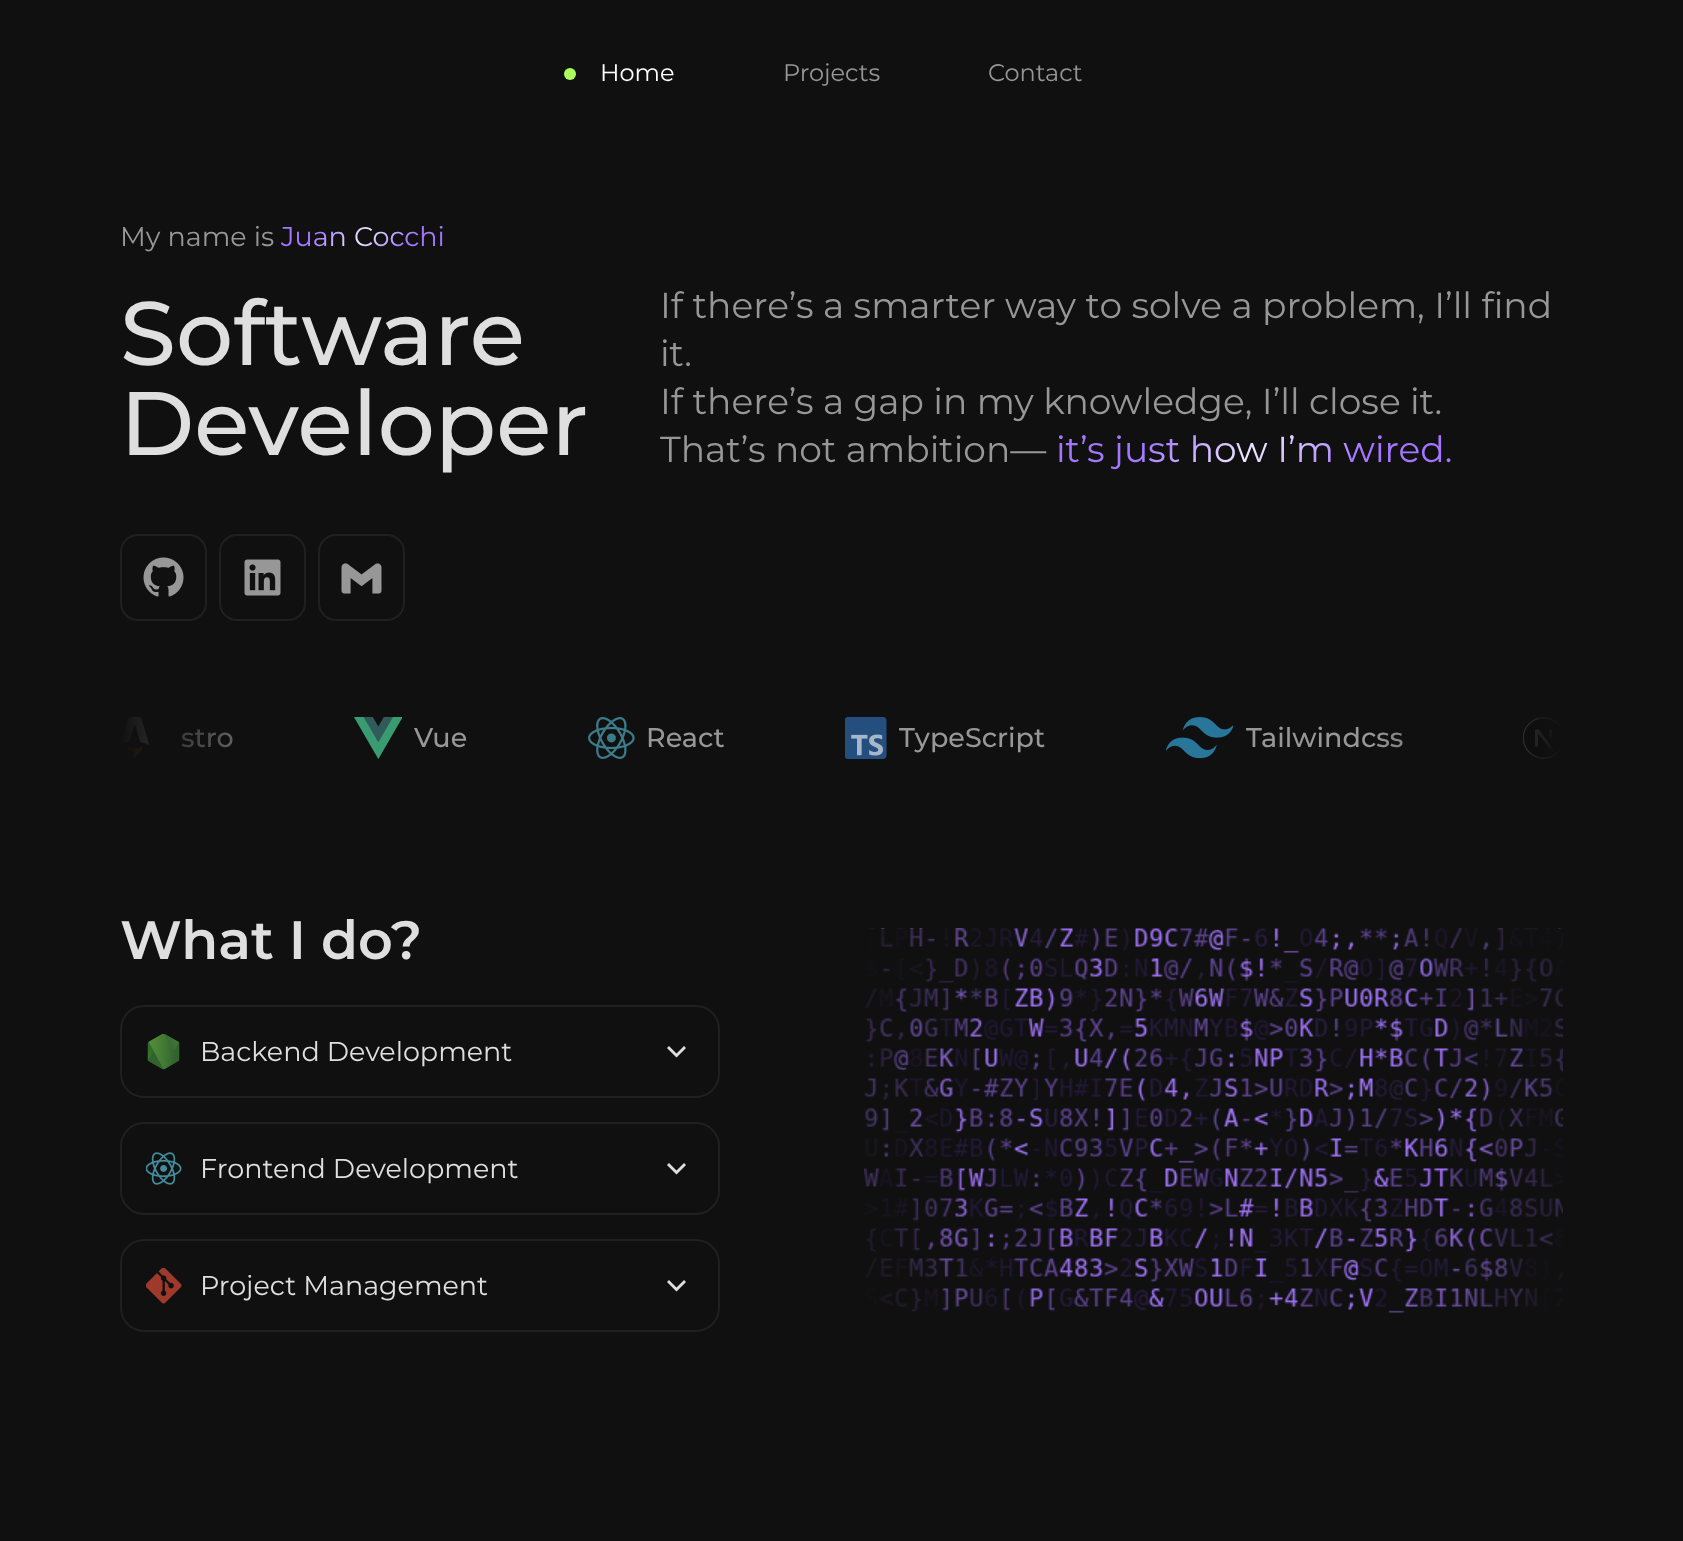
<?xml version="1.0" encoding="UTF-8"?>
<svg xmlns="http://www.w3.org/2000/svg" width="1683" height="1541">
    <defs>
        <linearGradient id="g1" gradientUnits="userSpaceOnUse" x1="314" y1="188" x2="412" y2="286"><stop offset="0.25" stop-color="#A476FF"/><stop offset="0.5" stop-color="#EEE5FF"/><stop offset="0.75" stop-color="#A476FF"/></linearGradient>
        <linearGradient id="g2" gradientUnits="userSpaceOnUse" x1="1144" y1="339" x2="1364" y2="559"><stop offset="0.25" stop-color="#A476FF"/><stop offset="0.5" stop-color="#EEE5FF"/><stop offset="0.75" stop-color="#A476FF"/></linearGradient>
        <linearGradient id="g3" gradientUnits="userSpaceOnUse" x1="120" y1="738" x2="312" y2="738"><stop offset="0" stop-color="#101010"/><stop offset="1" stop-color="#101010" stop-opacity="0"/></linearGradient>
        <linearGradient id="g4" gradientUnits="userSpaceOnUse" x1="1563" y1="738" x2="1371" y2="738"><stop offset="0" stop-color="#101010"/><stop offset="1" stop-color="#101010" stop-opacity="0"/></linearGradient>
        <radialGradient id="g5" gradientUnits="userSpaceOnUse" cx="1214" cy="1121" r="399"><stop offset="0.6" stop-color="#101010" stop-opacity="0"/><stop offset="1" stop-color="#101010"/></radialGradient>
    </defs>
    <rect width="100%" height="100%" fill="#101010"/>
    <circle cx="570" cy="74" r="6" fill="#A9FF5B"/>
    <text x="600" y="81" font-family="Montserrat" font-size="24" fill="#FFFFFF">Home</text>
    <text x="783" y="81" font-family="Montserrat" font-size="24" fill="#979797">Projects</text>
    <text x="988" y="81" font-family="Montserrat" font-size="24" fill="#979797">Contact</text>
    <text x="120" y="246" font-family="Montserrat" font-size="27" fill="#979797">My name is</text>
    <text x="281" y="246" font-family="Montserrat" font-size="27" fill="url(#g1)">Juan Cocchi</text>
    <text font-family="Montserrat" font-size="90" font-weight="500" fill="#DFDFDF">
        <tspan x="120" y="365">Software</tspan>
        <tspan x="120" y="455">Developer</tspan>
    </text>
    <text font-family="Montserrat" font-size="36" fill="#979797">
        <tspan x="660" y="318">If there’s a smarter way to solve a problem, I’ll find</tspan>
        <tspan x="660" y="366">it.</tspan>
        <tspan x="660" y="414">If there’s a gap in my knowledge, I’ll close it.</tspan>
        <tspan x="660" y="462">That’s not ambition—</tspan>
    </text>
    <text x="1056" y="462" font-family="Montserrat" font-size="36" fill="url(#g2)">it’s just how I’m wired.</text>
    <rect x="121" y="535" width="85" height="85" rx="17" fill="none" stroke="#202020" stroke-width="2"/>
    <image x="143" y="557" width="41" height="40" href="img_01.png"/>
    <rect x="220" y="535" width="85" height="85" rx="17" fill="none" stroke="#202020" stroke-width="2"/>
    <image x="244" y="559" width="37" height="37" href="img_02.png"/>
    <rect x="319" y="535" width="85" height="85" rx="17" fill="none" stroke="#202020" stroke-width="2"/>
    <image x="341" y="563" width="41" height="31" href="img_03.png"/>
    <image x="121" y="717" width="29" height="42" href="img_04.png"/>
    <text x="181" y="747" font-family="Montserrat" font-size="27" font-weight="500" fill="#979797">stro</text>
    <rect x="121" y="717" width="112" height="42" fill="url(#g3)"/>
    <image x="354" y="717" width="48" height="42" href="img_05.png"/>
    <text x="414" y="747" font-family="Montserrat" font-size="27" font-weight="500" fill="#979797">Vue</text>
    <image x="588" y="717" width="47" height="42" href="img_06.png"/>
    <text x="646" y="747" font-family="Montserrat" font-size="27" font-weight="500" fill="#979797">React</text>
    <image x="845" y="717" width="42" height="42" href="img_07.png"/>
    <text x="899" y="747" font-family="Montserrat" font-size="27" font-weight="500" fill="#979797">TypeScript</text>
    <image x="1166" y="717" width="67" height="41" href="img_08.png"/>
    <text x="1246" y="747" font-family="Montserrat" font-size="27" font-weight="500" fill="#979797">Tailwindcss</text>
    <image x="1523" y="717" width="39" height="42" href="img_09.png"/>
    <rect x="1377" y="717" width="185" height="42" fill="url(#g4)"/>
    <text x="120" y="959" font-family="Montserrat" font-size="54" font-weight="600" fill="#DFDFDF">What I do?</text>
    <rect x="121" y="1006" width="598" height="91" rx="23" fill="none" stroke="#202020" stroke-width="2"/>
    <image x="147" y="1034" width="33" height="36" href="img_10.png"/>
    <text x="200" y="1061" font-family="Montserrat" font-size="27" fill="#DFDFDF">Backend Development</text>
    <path d="M 676.5 1053.5 L 684 1046 L 686 1048 L 676.5 1057.5 L 667 1048 L 669 1046 Z" fill="#DFDFDF"/>
    <rect x="121" y="1123" width="598" height="91" rx="23" fill="none" stroke="#202020" stroke-width="2"/>
    <image x="146" y="1152" width="36" height="33" href="img_11.png"/>
    <text x="200" y="1178" font-family="Montserrat" font-size="27" fill="#DFDFDF">Frontend Development</text>
    <path d="M 676.5 1170.5 L 684 1163 L 686 1165 L 676.5 1174.5 L 667 1165 L 669 1163 Z" fill="#DFDFDF"/>
    <rect x="121" y="1240" width="598" height="91" rx="23" fill="none" stroke="#202020" stroke-width="2"/>
    <image x="146" y="1268" width="36" height="36" href="img_12.png"/>
    <text x="200" y="1295" font-family="Montserrat" font-size="27" fill="#DFDFDF">Project Management</text>
    <path d="M 676.5 1287.5 L 684 1280 L 686 1282 L 676.5 1291.5 L 667 1282 L 669 1280 Z" fill="#DFDFDF"/>
    <image x="864" y="928" width="699" height="385" href="img_13.png"/>
    <rect x="864" y="929" width="699" height="384" fill="url(#g5)"/>
</svg>
